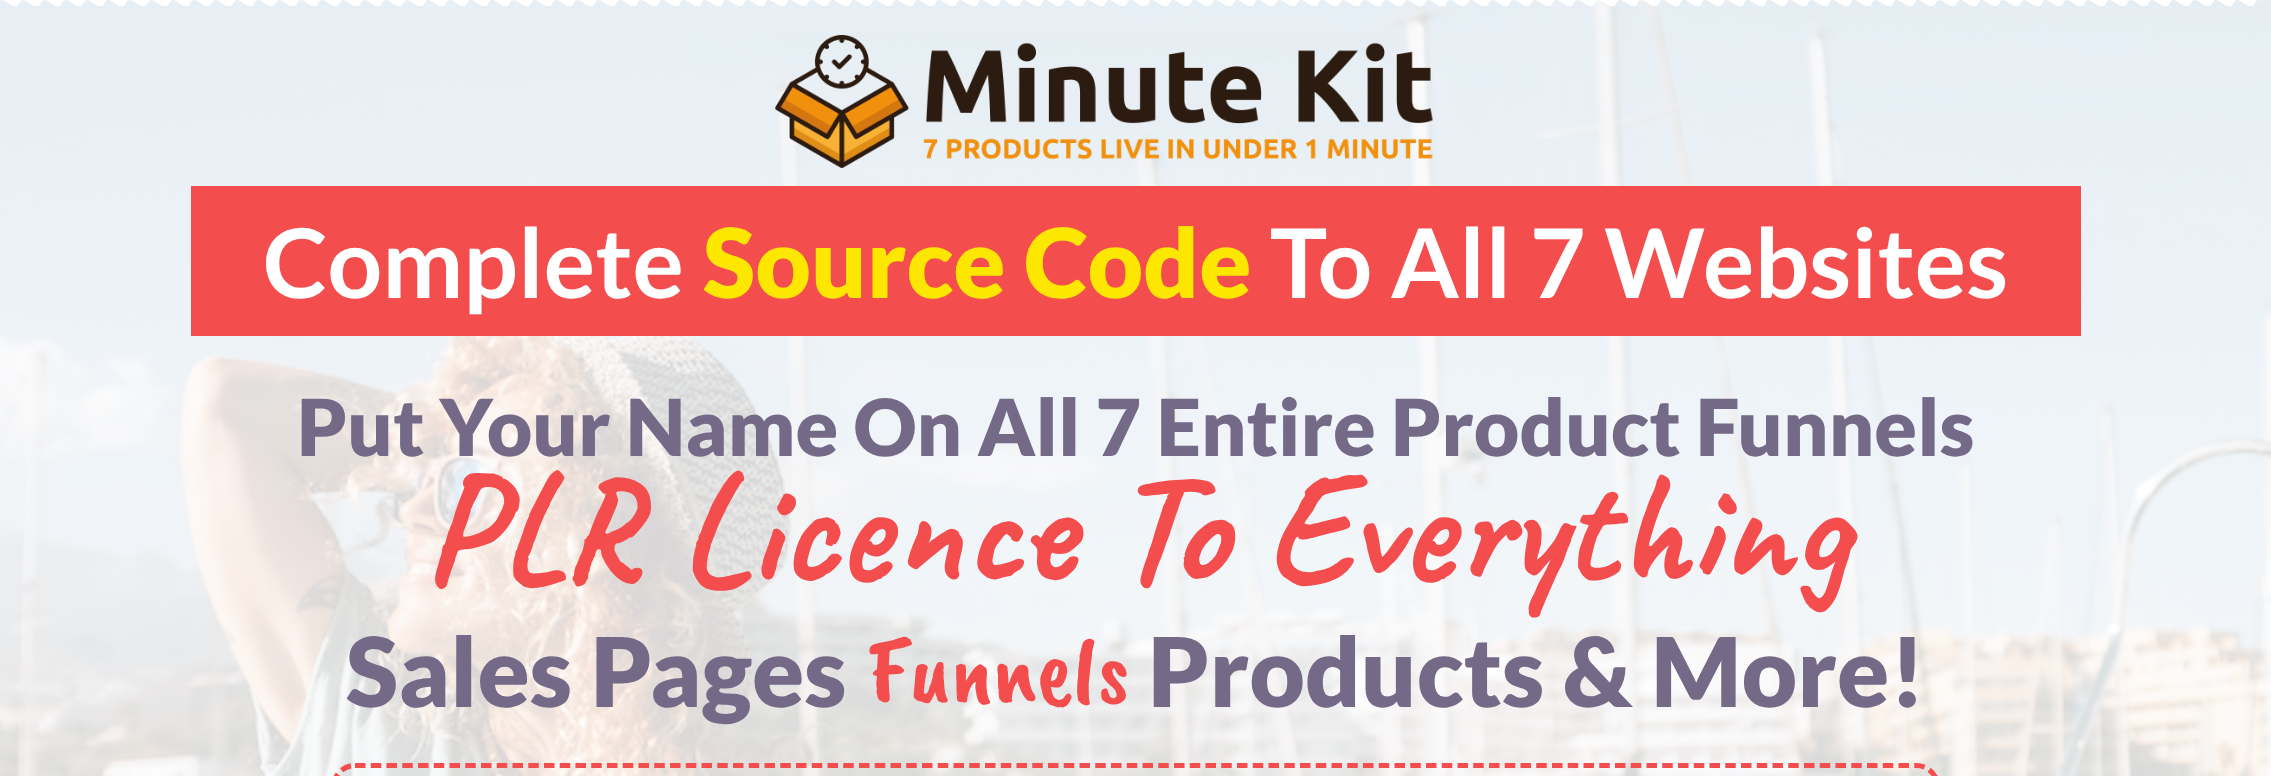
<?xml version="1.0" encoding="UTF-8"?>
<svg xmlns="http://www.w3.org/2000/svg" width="2271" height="776">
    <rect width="100%" height="100%" fill="#FFFFFF"/>
    <image x="0" y="0" width="2271" height="776" href="img_01.png"/>
    <image x="0" y="0" width="2262" height="6" href="img_02.png"/>
    <image x="775" y="35" width="658" height="133" href="img_03.png"/>
    <rect x="191" y="186" width="1890" height="150" fill="#F34D4E"/>
    <text x="263" y="298" font-family="Lato" font-size="96.25" font-weight="700" fill="#FFFFFF">Complete</text>
    <text x="703" y="298" font-family="Lato" font-size="96.25" font-weight="900" fill="#FDE700">Source Code</text>
    <text x="1270" y="298" font-family="Lato" font-size="96.25" font-weight="700" fill="#FFFFFF">To All 7 Websites</text>
    <text x="297" y="456" font-family="Lato" font-size="78.75" font-weight="900" fill="#756988">Put Your Name On All 7 Entire Product Funnels</text>
    <text x="423" y="580" font-family="Caveat" font-size="157.5" font-weight="700" fill="#F44D4E">PLR Licence To Everything</text>
    <text x="346" y="707" font-family="Lato" font-size="96.25" font-weight="900" fill="#756988">Sales Pages</text>
    <text x="866" y="702" font-family="Caveat Brush" font-size="96.25" fill="#F44D4E">Funnels</text>
    <text x="1148" y="707" font-family="Lato" font-size="96.25" font-weight="900" fill="#756988">Products &amp; More!</text>
    <path d="M 355 765.5 H 1916 C 1928.5 765.5 1938 775.5 1938 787.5 V 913.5 C 1938 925.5 1928.5 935.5 1916 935.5 H 355 C 343 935.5 333.5 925.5 333.5 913.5 V 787.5 C 333.5 775.5 343 765.5 355 765.5 Z" fill="none" stroke="#F44D4E" stroke-width="5.2" stroke-dasharray="10.5 5.25"/>
</svg>
